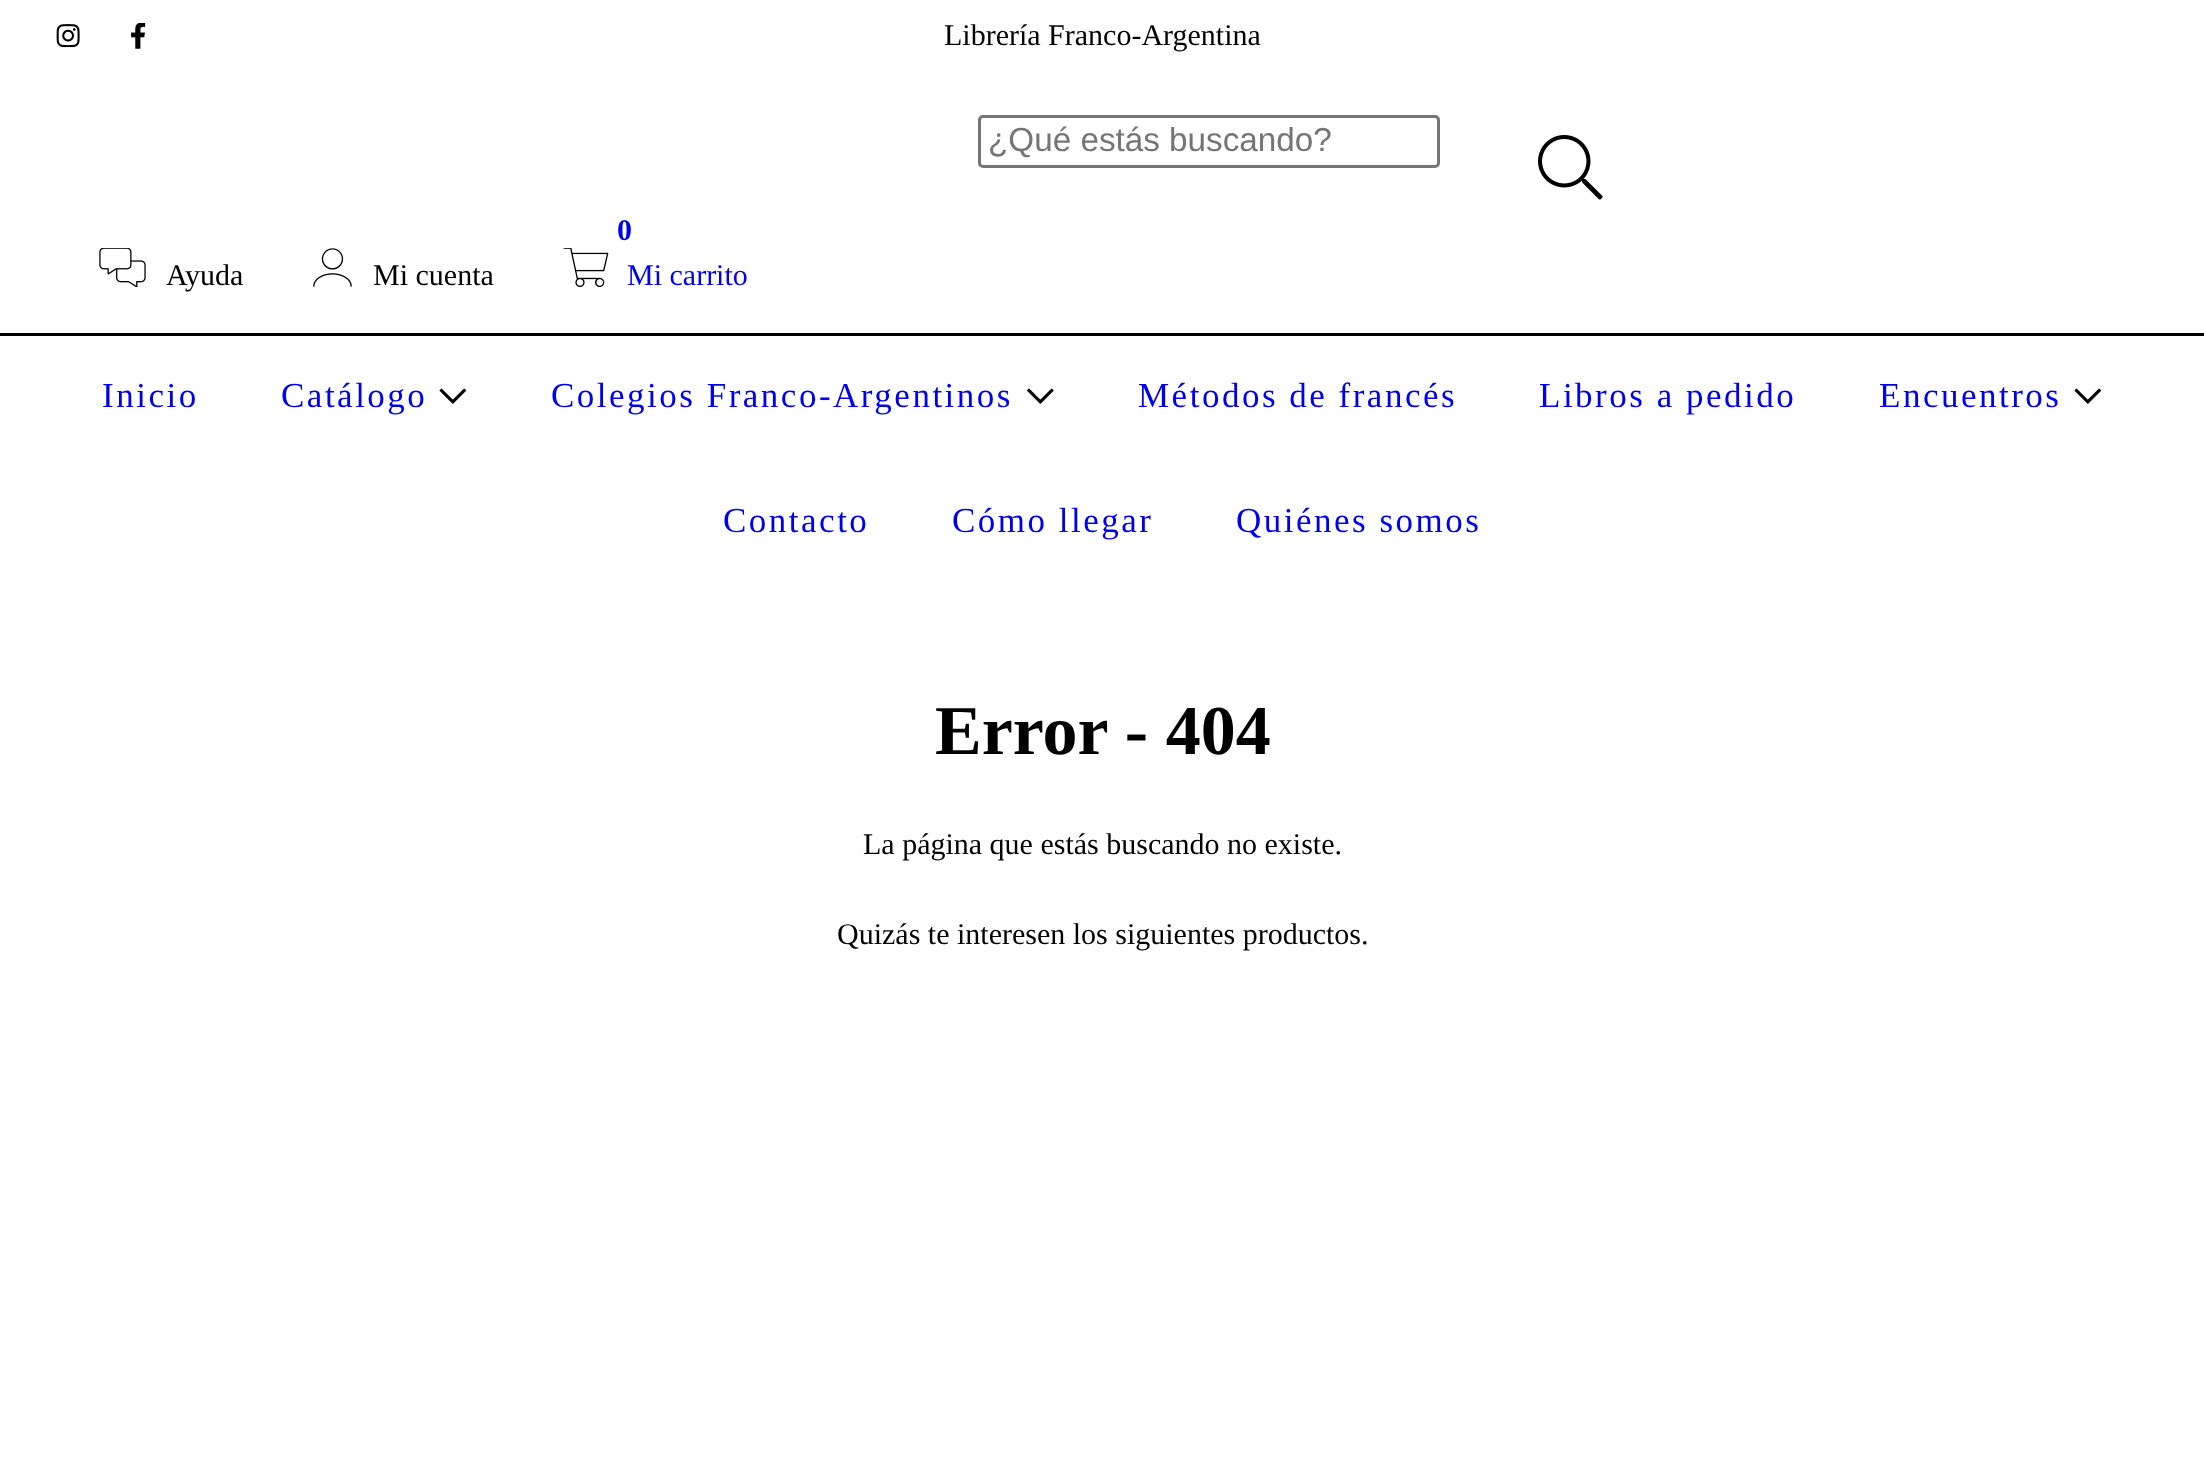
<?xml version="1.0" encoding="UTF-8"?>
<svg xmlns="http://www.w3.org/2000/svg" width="2204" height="1483">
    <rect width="100%" height="100%" fill="#FFFFFF"/>
    <image x="56" y="24" width="24" height="24" href="img_01.png"/>
    <image x="131" y="23" width="15" height="26" href="img_02.png"/>
    <text x="944" y="45" font-family="Liberation Serif" font-size="30" fill="#000000">Librería Franco-Argentina</text>
    <rect x="979.5" y="116.5" width="459" height="50" rx="3.5" fill="none" stroke="#767676" stroke-width="3"/>
    <text x="988" y="151" font-family="Liberation Sans" font-size="33.25" fill="#757575">¿Qué estás buscando?</text>
    <image x="1538" y="135" width="65" height="65" href="img_03.png"/>
    <image x="99" y="248" width="47" height="39" href="img_04.png"/>
    <text x="166" y="285" font-family="Liberation Serif" font-size="30" fill="#000000">Ayuda</text>
    <image x="313" y="248" width="39" height="39" href="img_05.png"/>
    <text x="373" y="285" font-family="Liberation Serif" font-size="30" fill="#000000">Mi cuenta</text>
    <text x="617" y="240" font-family="Liberation Serif" font-size="30" font-weight="700" fill="#0000EE">0</text>
    <image x="563" y="248" width="46" height="39" href="img_06.png"/>
    <text x="627" y="285" font-family="Liberation Serif" font-size="30" fill="#0000EE">Mi carrito</text>
    <rect x="0" y="333" width="2204" height="3" fill="#000000"/>
    <text x="102" y="407" font-family="Liberation Serif" font-size="35" letter-spacing="2.5" fill="#0000EE">Inicio</text>
    <text x="281" y="407" font-family="Liberation Serif" font-size="35" letter-spacing="2.5" fill="#0000EE">Catálogo</text>
    <image x="439" y="388" width="27" height="16" href="img_07.png"/>
    <text x="551" y="407" font-family="Liberation Serif" font-size="35" letter-spacing="2.5" fill="#0000EE">Colegios Franco-Argentinos</text>
    <image x="1027" y="388" width="27" height="16" href="img_08.png"/>
    <text x="1138" y="407" font-family="Liberation Serif" font-size="35" letter-spacing="2.5" fill="#0000EE">Métodos de francés</text>
    <text x="1539" y="407" font-family="Liberation Serif" font-size="35" letter-spacing="2.5" fill="#0000EE">Libros a pedido</text>
    <text x="1879" y="407" font-family="Liberation Serif" font-size="35" letter-spacing="2.5" fill="#0000EE">Encuentros</text>
    <image x="2074" y="388" width="27" height="16" href="img_07.png"/>
    <text x="723" y="532" font-family="Liberation Serif" font-size="35" letter-spacing="2.5" fill="#0000EE">Contacto</text>
    <text x="952" y="532" font-family="Liberation Serif" font-size="35" letter-spacing="2.5" fill="#0000EE">Cómo llegar</text>
    <text x="1236" y="532" font-family="Liberation Serif" font-size="35" letter-spacing="2.5" fill="#0000EE">Quiénes somos</text>
    <text x="935" y="754" font-family="Liberation Serif" font-size="70" font-weight="700" fill="#000000">Error - 404</text>
    <text x="863" y="854" font-family="Liberation Serif" font-size="30" fill="#000000">La página que estás buscando no existe.</text>
    <text x="837" y="944" font-family="Liberation Serif" font-size="30" fill="#000000">Quizás te interesen los siguientes productos.</text>
</svg>
